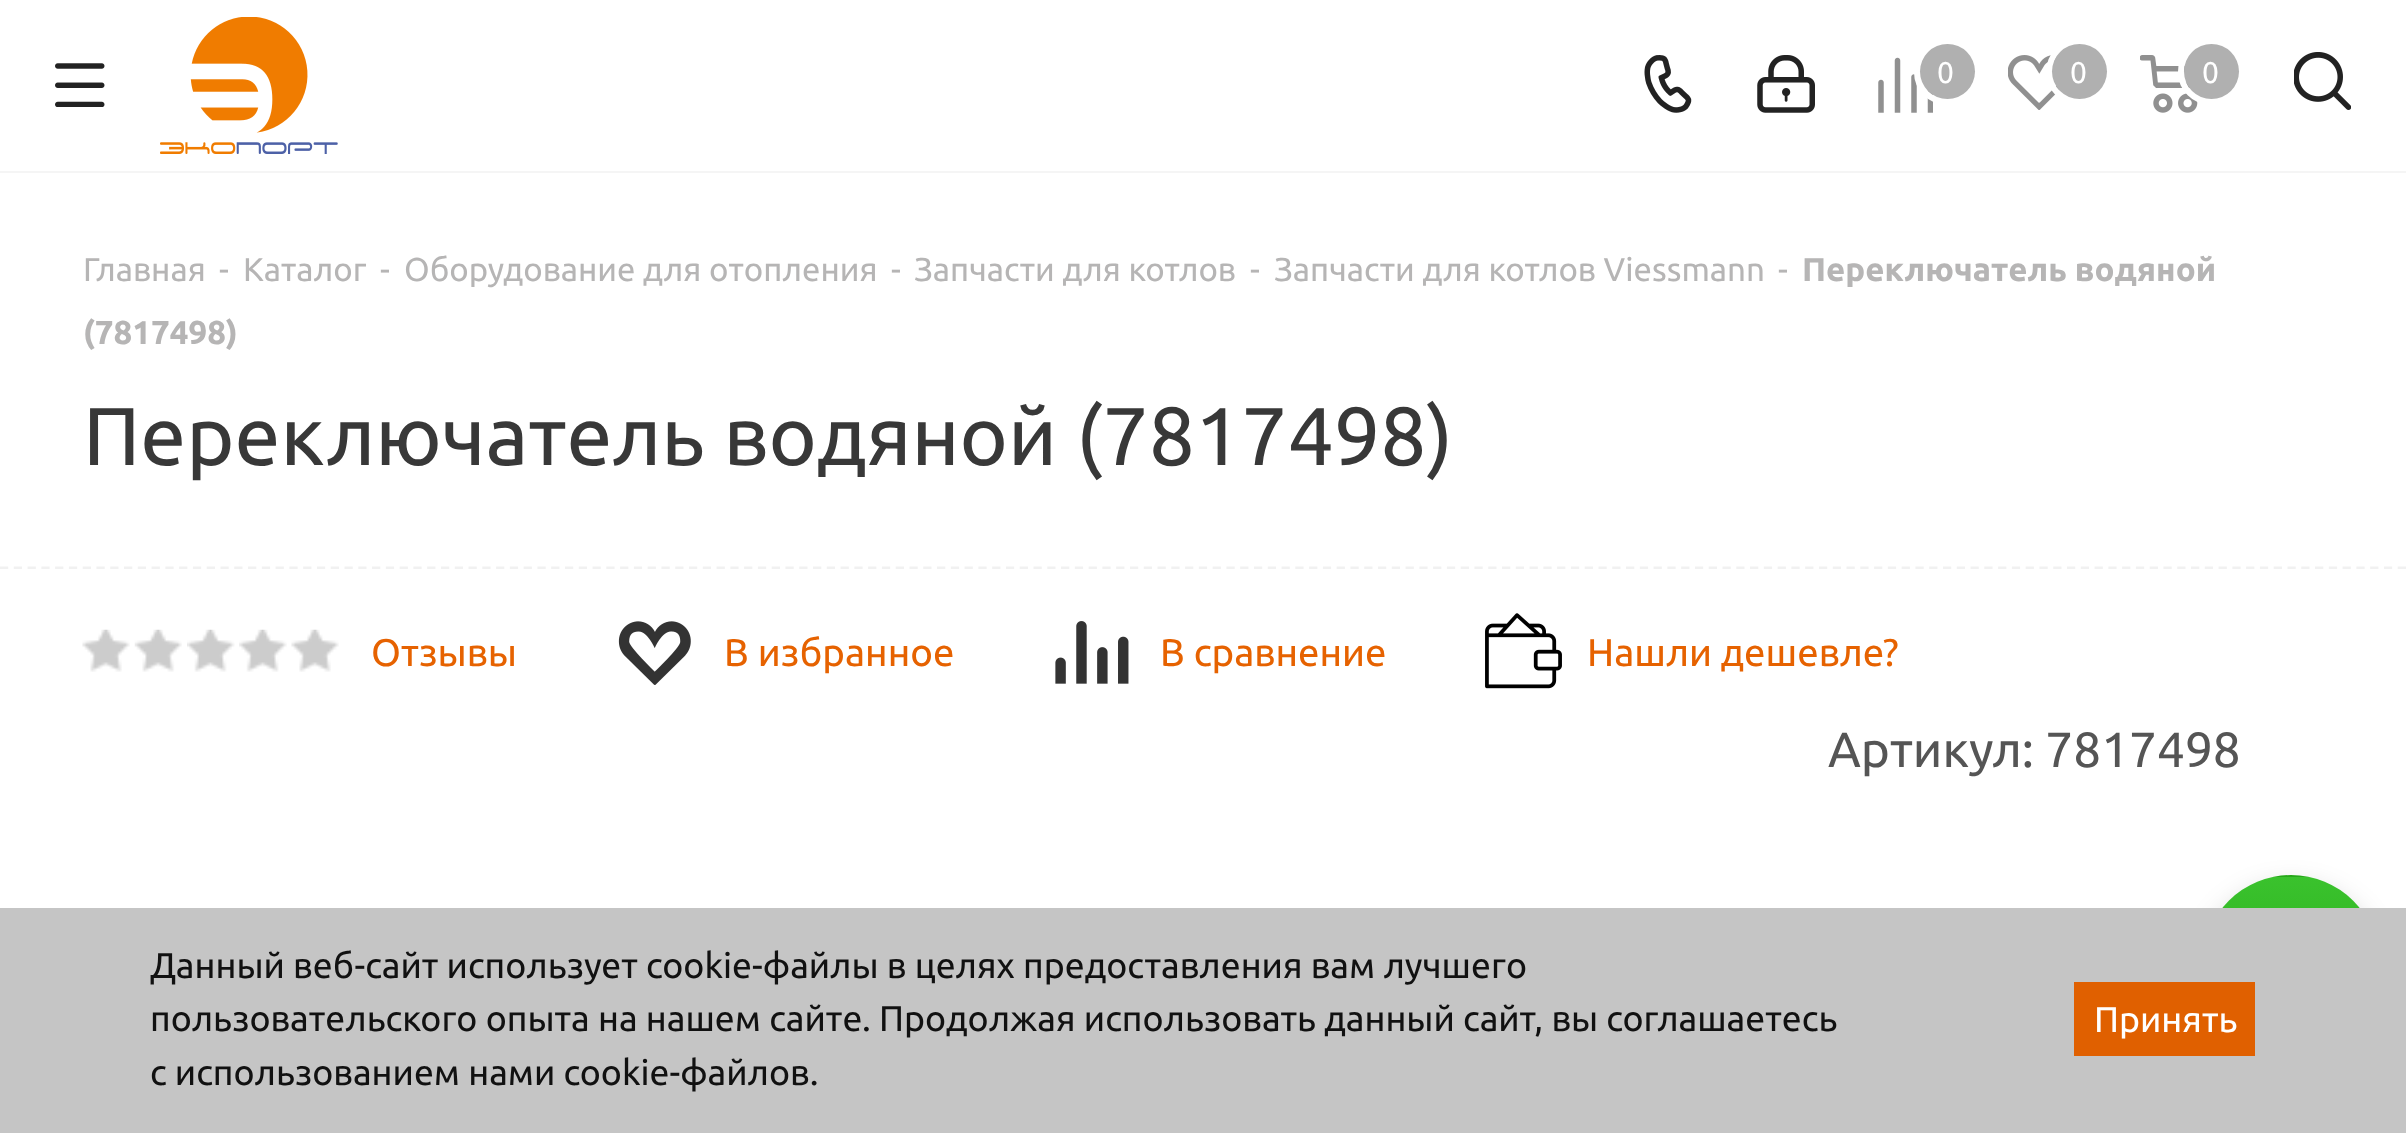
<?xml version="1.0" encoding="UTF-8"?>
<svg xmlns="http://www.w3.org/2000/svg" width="2406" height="1133">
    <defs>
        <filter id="blur1" x="-50%" y="-200%" width="200%" height="500%"><feGaussianBlur stdDeviation="14"/></filter>
        <clipPath id="clip1"><rect x="2203" y="875" width="176" height="176" rx="88"/></clipPath>
        <linearGradient id="g1" gradientUnits="userSpaceOnUse" x1="2291" y1="877" x2="2291" y2="707"><stop offset="0" stop-color="#26A819"/><stop offset="1" stop-color="#3AC22D"/></linearGradient>
        <linearGradient id="g2" gradientUnits="userSpaceOnUse" x1="2291" y1="1048" x2="2291" y2="877"><stop offset="0" stop-color="#26A819"/><stop offset="1" stop-color="#3AC22D"/></linearGradient>
    </defs>
    <rect width="100%" height="100%" fill="#FFFFFF"/>
    <rect x="0" y="171" width="2406" height="2" fill="#F5F5F5"/>
    <image x="55" y="63" width="50" height="44" href="img_01.png"/>
    <image x="160" y="17" width="178" height="137" href="img_02.png"/>
    <image x="1644" y="55" width="48" height="58" href="img_03.png"/>
    <image x="1757" y="55" width="58" height="58" href="img_04.png"/>
    <image x="1878" y="57" width="55" height="56" href="img_05.png"/>
    <circle cx="1947" cy="72" r="30" fill="none" stroke="#FFFFFF" stroke-width="6"/>
    <circle cx="1947.5" cy="71.5" r="27.5" fill="#B0B0B0"/>
    <text x="1937" y="83" font-family="Ubuntu" font-size="30" fill="#FFFFFF">0</text>
    <image x="2008" y="55" width="52" height="55" href="img_06.png"/>
    <circle cx="2079" cy="72" r="30" fill="none" stroke="#FFFFFF" stroke-width="6"/>
    <circle cx="2079.5" cy="71.5" r="27.5" fill="#B0B0B0"/>
    <text x="2070" y="83" font-family="Ubuntu" font-size="30" fill="#FFFFFF">0</text>
    <image x="2140" y="55" width="58" height="58" href="img_07.png"/>
    <circle cx="2211" cy="72" r="30" fill="none" stroke="#FFFFFF" stroke-width="6"/>
    <circle cx="2211.5" cy="71.5" r="27.5" fill="#B0B0B0"/>
    <text x="2202" y="83" font-family="Ubuntu" font-size="30" fill="#FFFFFF">0</text>
    <image x="2294" y="52" width="57" height="58" href="img_08.png"/>
    <path d="M 0 568 H 2406" fill="none" stroke="#F1F1F1" stroke-width="2.8" stroke-dasharray="8.25 5.53"/>
    <text x="83" y="281" font-family="Ubuntu" font-size="33" fill="#B6B5B5">Главная</text>
    <text x="219" y="281" font-family="Ubuntu" font-size="33" fill="#B6B5B5">-</text>
    <text x="243" y="281" font-family="Ubuntu" font-size="33" fill="#B6B5B5">Каталог</text>
    <text x="380" y="281" font-family="Ubuntu" font-size="33" fill="#B6B5B5">-</text>
    <text x="404" y="281" font-family="Ubuntu" font-size="33" fill="#B6B5B5">Оборудование для отопления</text>
    <text x="891" y="281" font-family="Ubuntu" font-size="33" fill="#B6B5B5">-</text>
    <text x="914" y="281" font-family="Ubuntu" font-size="33" fill="#B6B5B5">Запчасти для котлов</text>
    <text x="1250" y="281" font-family="Ubuntu" font-size="33" fill="#B6B5B5">-</text>
    <text x="1274" y="281" font-family="Ubuntu" font-size="33" fill="#B6B5B5">Запчасти для котлов Viessmann</text>
    <text x="1778" y="281" font-family="Ubuntu" font-size="33" fill="#B6B5B5">-</text>
    <text x="1802" y="281" font-family="Ubuntu" font-size="33" font-weight="700" fill="#B6B5B5">Переключатель водяной</text>
    <text x="83" y="344" font-family="Ubuntu" font-size="33" font-weight="700" fill="#B6B5B5">(7817498)</text>
    <text x="83" y="465" font-family="Ubuntu" font-size="82.1" fill="#383838">Переключатель водяной (7817498)</text>
    <rect x="0" y="569" width="2406" height="1" fill="#FFFFFF"/>
    <image x="82" y="629" width="48" height="43" href="img_09.png"/>
    <image x="134" y="629" width="48" height="43" href="img_10.png"/>
    <image x="187" y="629" width="48" height="43" href="img_11.png"/>
    <image x="239" y="629" width="48" height="43" href="img_12.png"/>
    <image x="291" y="629" width="48" height="43" href="img_13.png"/>
    <text x="371" y="666" font-family="Ubuntu" font-size="38.5" fill="#E66200">Отзывы</text>
    <image x="618" y="621" width="73" height="64" href="img_14.png"/>
    <text x="724" y="666" font-family="Ubuntu" font-size="38.5" fill="#E66200">В избранное</text>
    <image x="1055" y="621" width="74" height="63" href="img_15.png"/>
    <text x="1160" y="666" font-family="Ubuntu" font-size="38.5" fill="#E66200">В сравнение</text>
    <image x="1485" y="613" width="77" height="76" href="img_16.png"/>
    <text x="1587" y="666" font-family="Ubuntu" font-size="38.5" fill="#E66200">Нашли дешевле?</text>
    <text x="1828" y="767" font-family="Ubuntu" font-size="49.5" fill="#555555">Артикул: 7817498</text>
    <rect x="2203" y="888" width="176" height="176" rx="88" fill="#000000" fill-opacity="0.2" filter="url(#blur1)"/>
    <rect x="0" y="908" width="2406" height="225" fill="#C5C5C5"/>
    <text font-family="Ubuntu" font-size="35.75" fill="#111111">
        <tspan x="150" y="978">Данный веб-сайт использует cookie-файлы в целях предоставления вам лучшего</tspan>
        <tspan x="150" y="1031">пользовательского опыта на нашем сайте. Продолжая использовать данный сайт, вы соглашаетесь</tspan>
        <tspan x="150" y="1085">с использованием нами cookie-файлов.</tspan>
    </text>
    <rect x="2074" y="982" width="181" height="74" fill="#E06000"/>
    <text x="2094" y="1032" font-family="Ubuntu" font-size="35.75" fill="#FFFFFF">Принять</text>
    <g clip-path="url(#clip1)">
        <rect x="2272" y="875" width="38" height="2" fill="url(#g1)"/>
        <rect x="2222" y="877" width="138" height="31" fill="url(#g2)"/>
    </g>
</svg>
